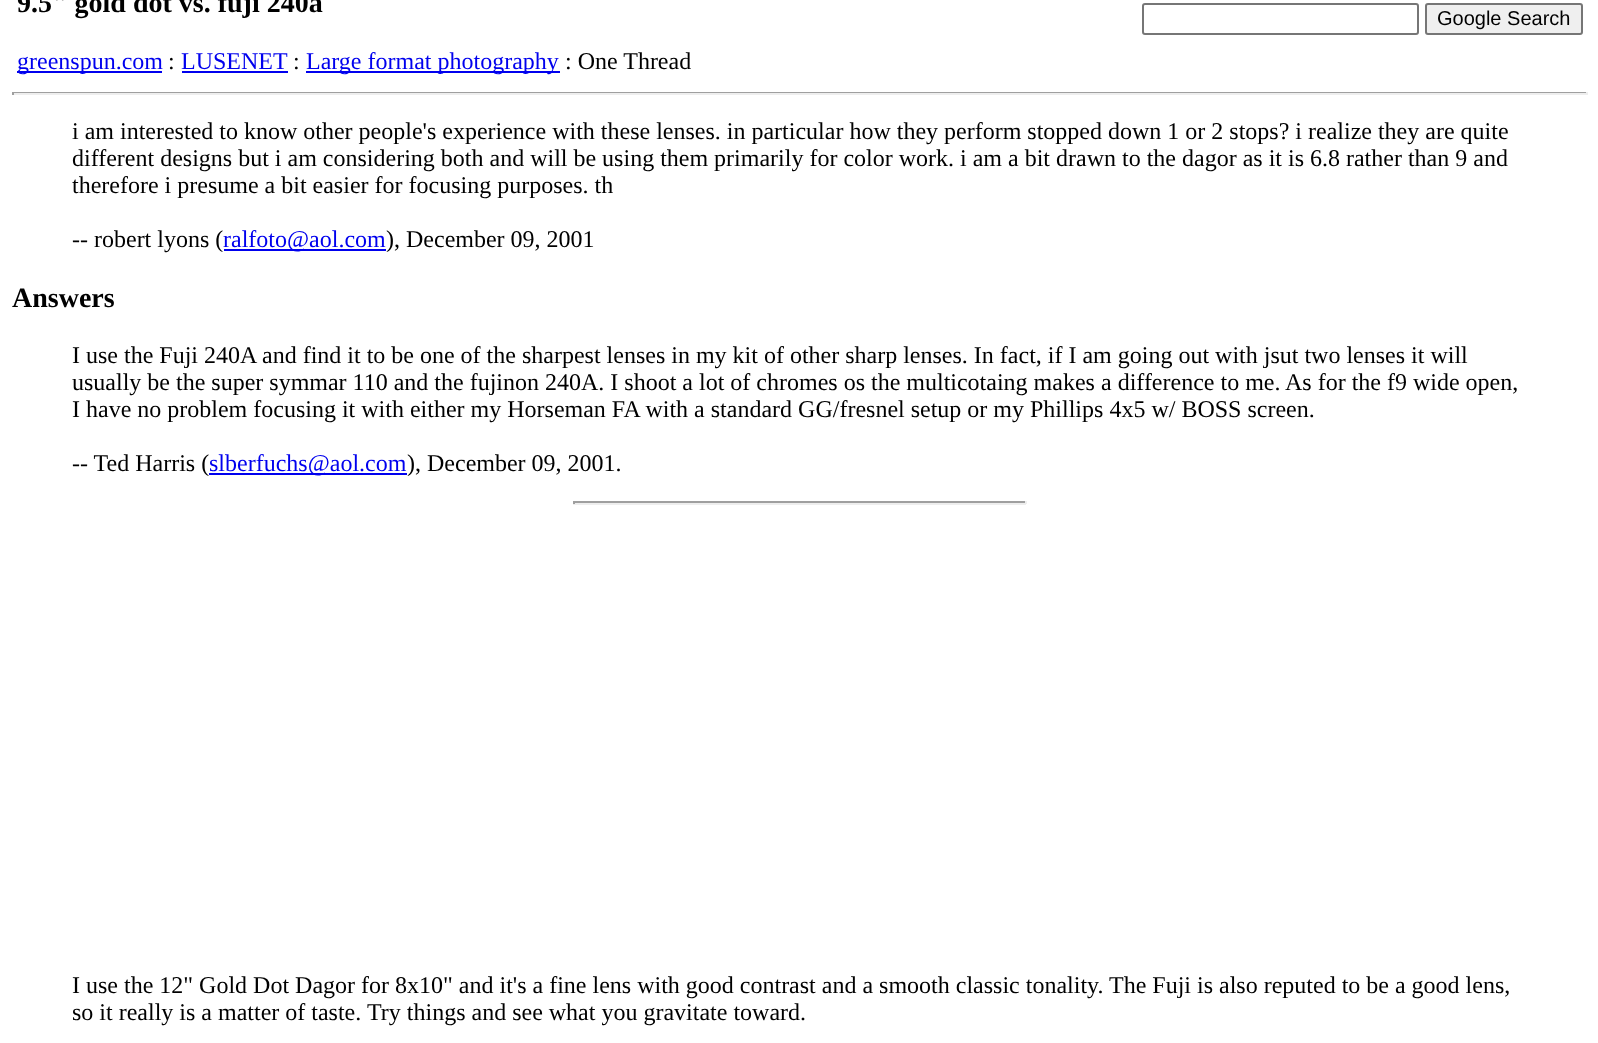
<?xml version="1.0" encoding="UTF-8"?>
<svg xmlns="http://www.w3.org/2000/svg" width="1598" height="1043">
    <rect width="100%" height="100%" fill="#FFFFFF"/>
    <text x="17" y="12" font-family="Liberation Serif" font-size="28" font-weight="700" fill="#000000">9.5" gold dot vs. fuji 240a</text>
    <rect x="17" y="71" width="145" height="2" fill="#0000EE"/>
    <text x="17" y="69" font-family="Liberation Serif" font-size="24" fill="#0000EE">greenspun.com</text>
    <text x="168" y="69" font-family="Liberation Serif" font-size="24" fill="#000000">:</text>
    <text x="181" y="69" font-family="Liberation Serif" font-size="24" fill="#0000EE">LUSENET</text>
    <rect x="182" y="71" width="106" height="2" fill="#0000EE"/>
    <text x="293" y="69" font-family="Liberation Serif" font-size="24" fill="#000000">:</text>
    <rect x="306" y="71" width="254" height="2" fill="#0000EE"/>
    <text x="306" y="69" font-family="Liberation Serif" font-size="24" fill="#0000EE">Large format photography</text>
    <text x="565" y="69" font-family="Liberation Serif" font-size="24" fill="#000000">: One Thread</text>
    <rect x="1143" y="4" width="275" height="30" rx="2" fill="none" stroke="#767676" stroke-width="2"/>
    <rect x="1426" y="4" width="156" height="30" rx="2" fill="#EFEFEF" stroke="#767676" stroke-width="2"/>
    <text x="1437" y="25" font-family="Liberation Sans" font-size="20" fill="#000000">Google Search</text>
    <rect x="12" y="92" width="1575" height="1" fill="#9F9F9F"/>
    <rect x="1586" y="92" width="2" height="3" fill="#EEEEEE"/>
    <rect x="12" y="93" width="1575" height="2" fill="#EEEEEE"/>
    <rect x="12" y="92" width="2" height="3" fill="#9F9F9F"/>
    <text font-family="Liberation Serif" font-size="24" fill="#000000">
        <tspan x="72" y="139">i am interested to know other people's experience with these lenses. in particular how they perform stopped down 1 or 2 stops? i realize they are quite</tspan>
        <tspan x="72" y="166">different designs but i am considering both and will be using them primarily for color work. i am a bit drawn to the dagor as it is 6.8 rather than 9 and</tspan>
        <tspan x="72" y="193">therefore i presume a bit easier for focusing purposes. th</tspan>
    </text>
    <text x="72" y="247" font-family="Liberation Serif" font-size="24" fill="#000000">-- robert lyons (</text>
    <rect x="224" y="249" width="162" height="2" fill="#0000EE"/>
    <text x="223" y="247" font-family="Liberation Serif" font-size="24" fill="#0000EE">ralfoto@aol.com</text>
    <text x="386" y="247" font-family="Liberation Serif" font-size="24" fill="#000000">), December 09, 2001</text>
    <text x="12" y="307" font-family="Liberation Serif" font-size="28" font-weight="700" fill="#000000">Answers</text>
    <text font-family="Liberation Serif" font-size="24" fill="#000000">
        <tspan x="72" y="363">I use the Fuji 240A and find it to be one of the sharpest lenses in my kit of other sharp lenses. In fact, if I am going out with jsut two lenses it will</tspan>
        <tspan x="72" y="390">usually be the super symmar 110 and the fujinon 240A. I shoot a lot of chromes os the multicotaing makes</tspan>
    </text>
    <text x="1101" y="390" font-family="Liberation Serif" font-size="24" fill="#000000">a difference to me.</text>
    <text x="1285" y="390" font-family="Liberation Serif" font-size="24" fill="#000000">As for the f9 wide open,</text>
    <text x="72" y="417" font-family="Liberation Serif" font-size="24" fill="#000000">I have no problem focusing it with either my Horseman FA with a standard GG/fresnel setup or my Phillips 4x5 w/ BOSS screen.</text>
    <text x="72" y="471" font-family="Liberation Serif" font-size="24" fill="#000000">-- Ted Harris (</text>
    <rect x="209" y="473" width="198" height="2" fill="#0000EE"/>
    <text x="209" y="471" font-family="Liberation Serif" font-size="24" fill="#0000EE">slberfuchs@aol.com</text>
    <text x="407" y="471" font-family="Liberation Serif" font-size="24" fill="#000000">), December 09, 2001.</text>
    <rect x="573" y="501" width="453" height="2" fill="#9F9F9F"/>
    <rect x="1025" y="501" width="2" height="3" fill="#EEEEEE"/>
    <rect x="573" y="503" width="453" height="2" fill="#EEEEEE"/>
    <rect x="573" y="501" width="2" height="3" fill="#9F9F9F"/>
    <text x="72" y="993" font-family="Liberation Serif" font-size="24" fill="#000000">I use the 12" Gold Dot Dagor for 8x10" and it's a fine lens with good contrast and a smooth classic tonality.</text>
    <text x="1109" y="993" font-family="Liberation Serif" font-size="24" fill="#000000">The Fuji is also reputed to be a good lens,</text>
    <text x="72" y="1020" font-family="Liberation Serif" font-size="24" fill="#000000">so it really is a matter of taste.</text>
    <text x="367" y="1020" font-family="Liberation Serif" font-size="24" fill="#000000">Try things and see what you gravitate toward.</text>
</svg>
